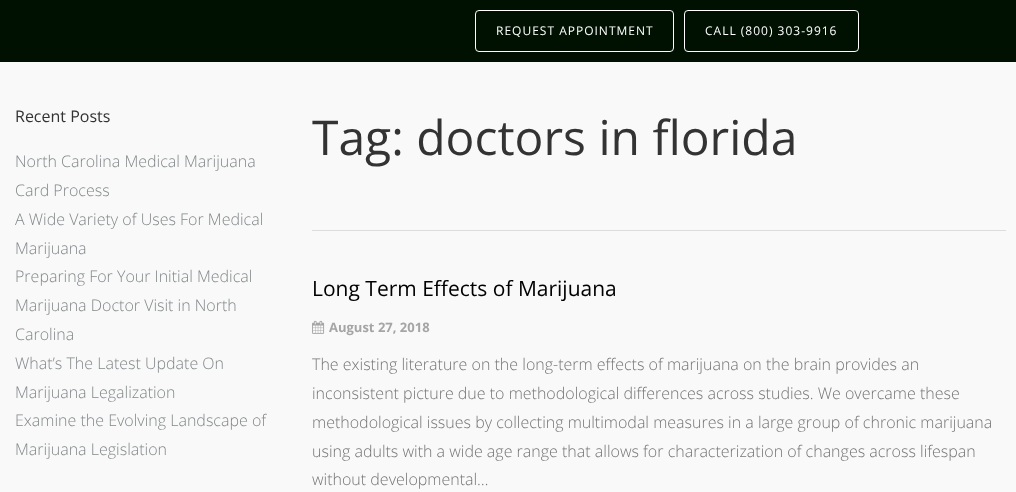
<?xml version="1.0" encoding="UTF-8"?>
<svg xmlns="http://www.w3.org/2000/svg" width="1016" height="492">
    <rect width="100%" height="100%" fill="#F9F9F9"/>
    <rect x="0" y="0" width="1016" height="62" fill="#001102"/>
    <rect x="475.5" y="10.5" width="198" height="41" rx="3.5" fill="none" stroke="#FFFFFF"/>
    <text x="496" y="35" font-family="Open Sans" font-size="12" letter-spacing="1" fill="#FFFFFF">REQUEST APPOINTMENT</text>
    <rect x="684.5" y="10.5" width="174" height="41" rx="3.5" fill="none" stroke="#FFFFFF"/>
    <text x="705" y="35" font-family="Open Sans" font-size="12" letter-spacing="1" fill="#FFFFFF">CALL (800) 303-9916</text>
    <text x="15" y="122" font-family="Open Sans" font-size="16" fill="#333333">Recent Posts</text>
    <text font-family="Open Sans" font-size="16" font-weight="300" fill="#82888A">
        <tspan x="15" y="167">North Carolina Medical Marijuana</tspan>
        <tspan x="15" y="196">Card Process</tspan>
        <tspan x="15" y="225">A Wide Variety of Uses For Medical</tspan>
        <tspan x="15" y="254">Marijuana</tspan>
        <tspan x="15" y="282">Preparing For Your Initial Medical</tspan>
        <tspan x="15" y="311">Marijuana Doctor Visit in North</tspan>
        <tspan x="15" y="340">Carolina</tspan>
        <tspan x="15" y="369">What’s The Latest Update On</tspan>
        <tspan x="15" y="398">Marijuana Legalization</tspan>
        <tspan x="15" y="426">Examine the Evolving Landscape of</tspan>
        <tspan x="15" y="455">Marijuana Legislation</tspan>
    </text>
    <text x="312" y="155" font-family="Open Sans" font-size="48" fill="#333333">Tag: doctors in florida</text>
    <rect x="312" y="230" width="694" height="1" fill="#DDDDDD"/>
    <text x="312" y="296" font-family="Open Sans" font-size="21" fill="#000000">Long Term Effects of Marijuana</text>
    <image x="312" y="320" width="13" height="14" href="img_01.png"/>
    <text x="329" y="332" font-family="Open Sans" font-size="13" font-weight="700" fill="#A5A5A5">August 27, 2018</text>
    <text font-family="Open Sans" font-size="16" font-weight="300" fill="#757575">
        <tspan x="312" y="370">The existing literature on the long-term effects of marijuana on the brain provides an</tspan>
        <tspan x="312" y="399">inconsistent picture due to methodological differences across studies. We overcame these</tspan>
        <tspan x="312" y="428">methodological issues by collecting multimodal measures in a large group of chronic marijuana</tspan>
        <tspan x="312" y="457">using adults with a wide age range that allows for characterization of changes across lifespan</tspan>
        <tspan x="312" y="485">without developmental…</tspan>
    </text>
</svg>
